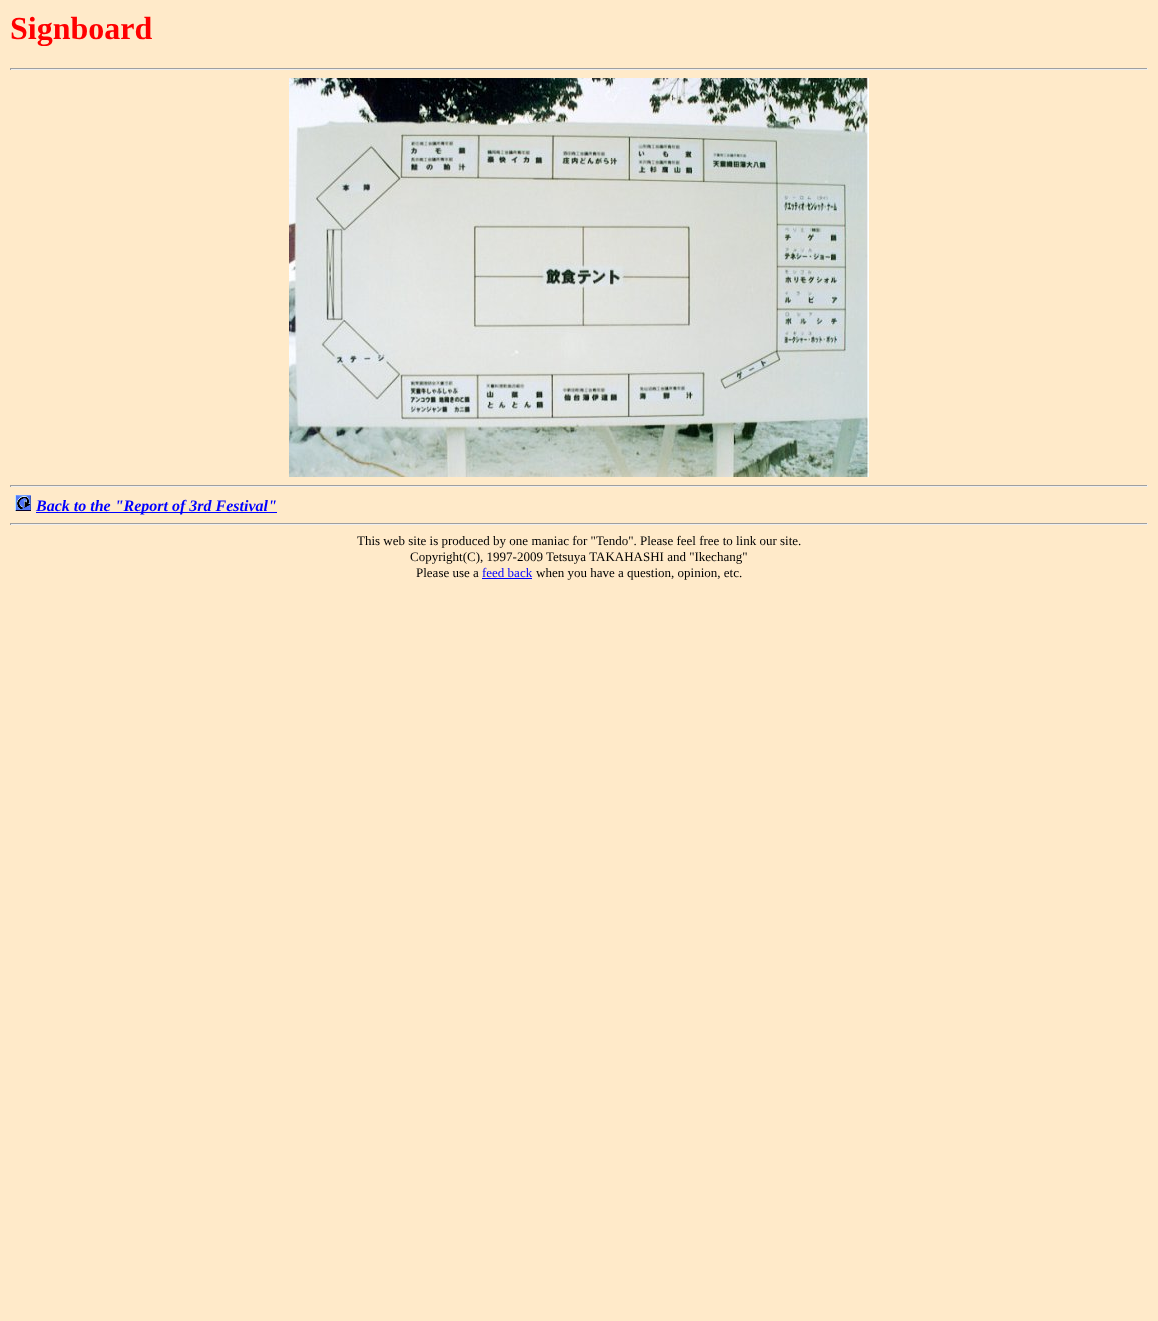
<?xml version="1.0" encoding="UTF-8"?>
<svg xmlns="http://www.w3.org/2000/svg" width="1158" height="1321">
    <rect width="100%" height="100%" fill="#FFEAC9"/>
    <text x="10" y="39" font-family="Liberation Serif" font-size="32" font-weight="700" fill="#FF0000">Signboard</text>
    <rect x="10" y="68" width="1138" height="1" fill="#9F9F9F"/>
    <rect x="1147" y="68" width="1" height="2" fill="#EEEEEE"/>
    <rect x="10" y="69" width="1138" height="1" fill="#EEEEEE"/>
    <rect x="10" y="68" width="1" height="2" fill="#9F9F9F"/>
    <image x="289" y="78" width="580" height="399" href="img_01.png"/>
    <rect x="10" y="485" width="1138" height="1" fill="#9F9F9F"/>
    <rect x="1147" y="485" width="1" height="2" fill="#EEEEEE"/>
    <rect x="10" y="486" width="1138" height="1" fill="#EEEEEE"/>
    <rect x="10" y="485" width="1" height="2" fill="#9F9F9F"/>
    <image x="15" y="495" width="16" height="16" href="img_02.png"/>
    <rect x="36" y="512" width="241" height="1" fill="#0000FF"/>
    <text x="36" y="511" font-family="Liberation Serif" font-size="16" font-weight="700" font-style="italic" fill="#0000FF">Back to the "Report of 3rd Festival"</text>
    <rect x="10" y="523" width="1138" height="1" fill="#9F9F9F"/>
    <rect x="1147" y="523" width="1" height="2" fill="#EEEEEE"/>
    <rect x="10" y="524" width="1138" height="1" fill="#EEEEEE"/>
    <rect x="10" y="523" width="1" height="2" fill="#9F9F9F"/>
    <text x="357" y="545" font-family="Liberation Serif" font-size="13" fill="#000000">This web site is produced by one maniac for "Tendo". Please feel free to link our site.</text>
    <text x="410" y="561" font-family="Liberation Serif" font-size="13" fill="#000000">Copyright(C), 1997-2009 Tetsuya TAKAHASHI and "Ikechang"</text>
    <text x="416" y="577" font-family="Liberation Serif" font-size="13" fill="#000000">Please use a</text>
    <text x="482" y="577" font-family="Liberation Serif" font-size="13" fill="#0000FF">feed back</text>
    <rect x="482" y="578" width="50" height="1" fill="#0000FF"/>
    <text x="536" y="577" font-family="Liberation Serif" font-size="13" fill="#000000">when you have a question, opinion, etc.</text>
</svg>
